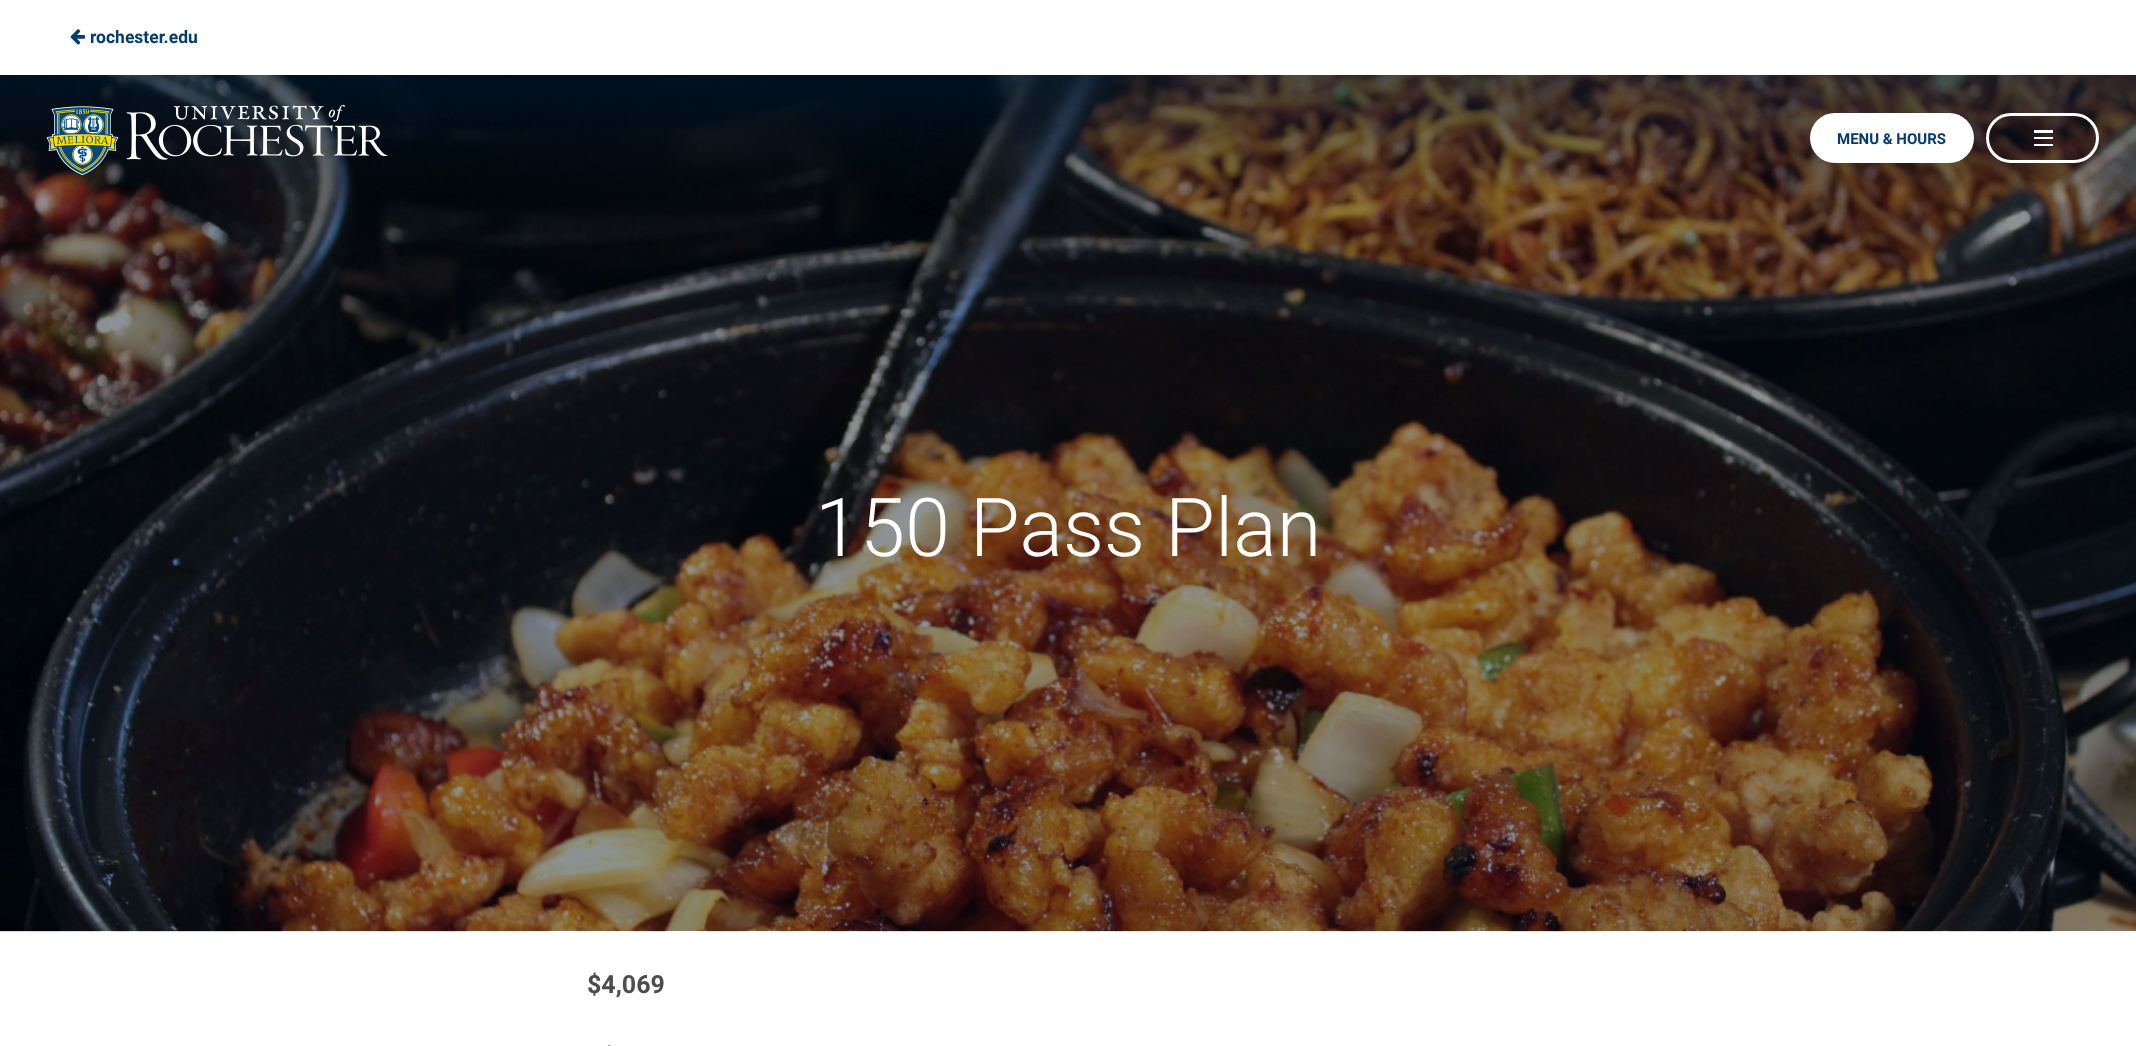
<?xml version="1.0" encoding="UTF-8"?>
<svg xmlns="http://www.w3.org/2000/svg" width="2136" height="1046">
    <defs>
        <linearGradient id="g1" gradientUnits="userSpaceOnUse" x1="1068" y1="75" x2="1068" y2="200"><stop offset="0" stop-color="#00203E" stop-opacity="0.4"/><stop offset="1" stop-color="#00203E" stop-opacity="0"/></linearGradient>
    </defs>
    <rect width="100%" height="100%" fill="#FFFFFF"/>
    <image x="70" y="29" width="15" height="16" href="img_01.png"/>
    <text x="90" y="43" font-family="Roboto" font-size="17.5" font-weight="700" fill="#003B71">rochester.edu</text>
    <rect x="0" y="75" width="2136" height="856" fill="#000509"/>
    <image x="0" y="75" width="2136" height="857" href="img_03.png"/>
    <rect x="0" y="75" width="2136" height="118" fill="url(#g1)"/>
    <image x="46" y="104" width="342" height="71" href="img_02.png"/>
    <rect x="1811.5" y="114.5" width="161" height="47" rx="23.5" fill="#FFFFFF" stroke="#FFFFFF" stroke-width="3"/>
    <text x="1837" y="144" font-family="Roboto" font-size="15" font-weight="700" fill="#003B71">MENU &amp; HOURS</text>
    <rect x="1987.5" y="114.5" width="110" height="47" rx="23.5" fill="none" stroke="#FFFFFF" stroke-width="3"/>
    <rect x="2034" y="130" width="19" height="3" fill="#FFFFFF"/>
    <rect x="2034" y="137" width="19" height="2" fill="#FFFFFF"/>
    <rect x="2034" y="144" width="19" height="2" fill="#FFFFFF"/>
    <text x="815" y="556" font-family="Roboto" font-size="81.25" font-weight="300" fill="#FFFFFF">150 Pass Plan</text>
    <text x="587" y="993" font-family="Roboto" font-size="25" font-weight="700" fill="#4D4D4D">$4,069</text>
    <path d="M 609 1045 L 613 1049.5 L 609 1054 L 604.5 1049.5 Z" fill="#003B71"/>
</svg>
